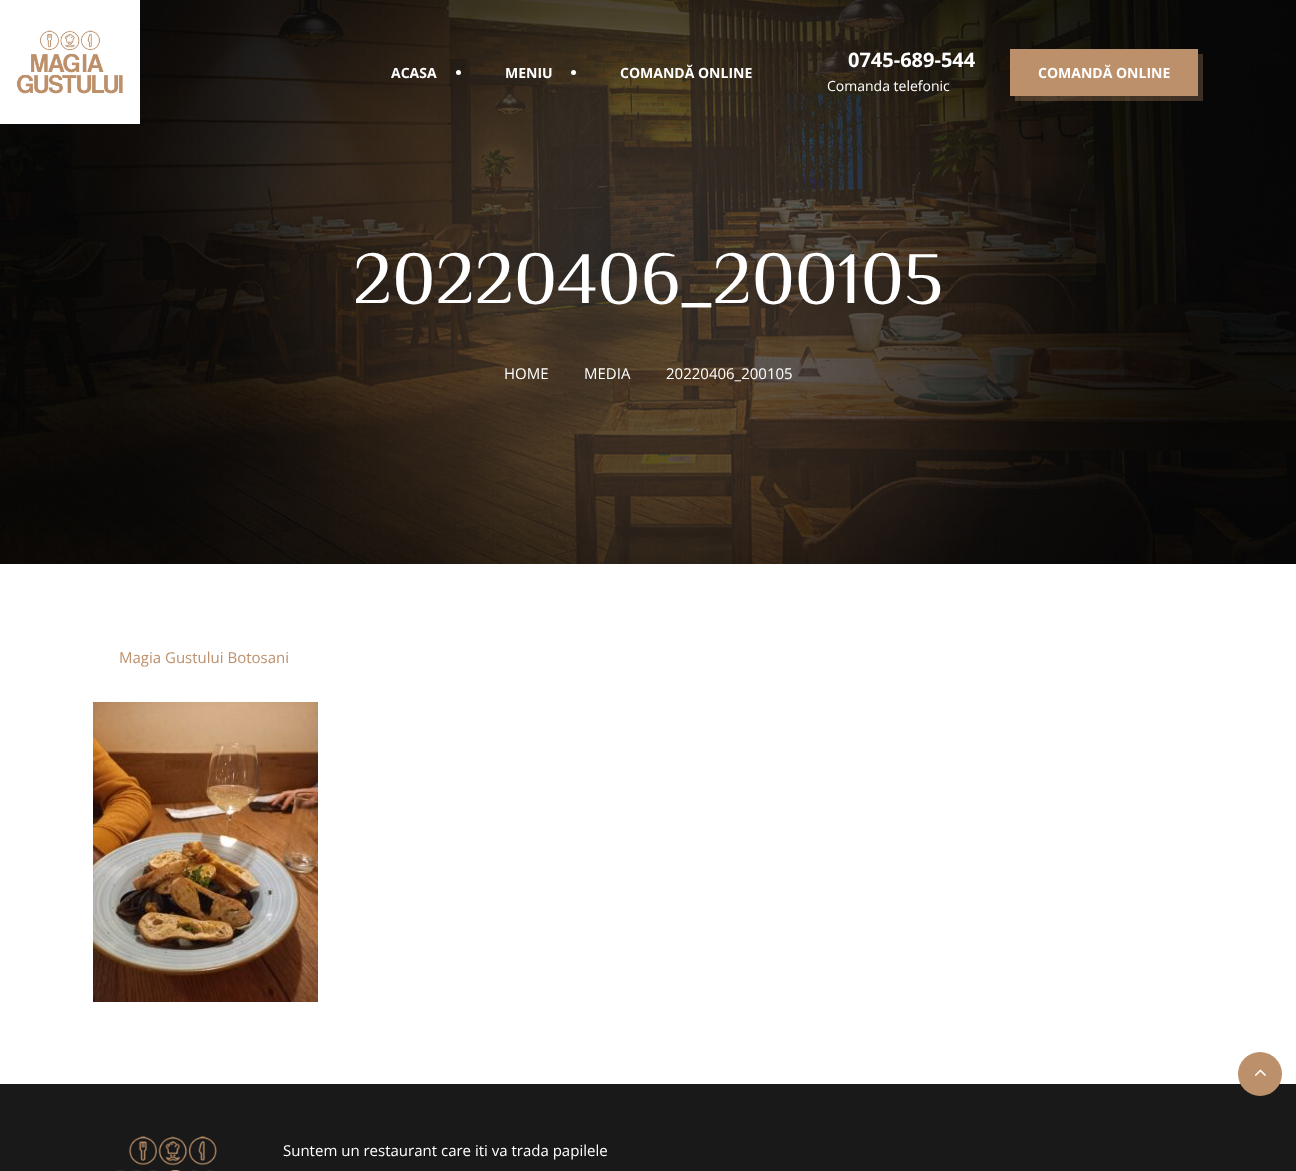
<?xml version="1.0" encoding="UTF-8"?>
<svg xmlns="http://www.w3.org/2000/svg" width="1296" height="1171">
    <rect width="100%" height="100%" fill="#FFFFFF"/>
    <image x="0" y="0" width="1296" height="564" href="img_02.png"/>
    <rect x="0" y="0" width="140" height="124" fill="#FFFFFF"/>
    <image x="16" y="30" width="107" height="64" href="img_01.png"/>
    <text x="391" y="78" font-family="Open Sans" font-size="14" font-weight="700" fill="#FFFFFF">ACASA</text>
    <circle cx="458.5" cy="72.5" r="2.5" fill="#FFFFFF"/>
    <text x="505" y="78" font-family="Open Sans" font-size="14" font-weight="700" fill="#FFFFFF">MENIU</text>
    <circle cx="573.5" cy="72.5" r="2.5" fill="#FFFFFF"/>
    <text x="620" y="78" font-family="Open Sans" font-size="14" font-weight="700" fill="#FFFFFF">COMANDĂ ONLINE</text>
    <rect x="797" y="52" width="1" height="41" fill="#3A3530"/>
    <text x="848" y="67" font-family="Open Sans" font-size="20" font-weight="700" fill="#FFFFFF">0745-689-544</text>
    <text x="827" y="91" font-family="Open Sans" font-size="14" fill="#FFFFFF">Comanda telefonic</text>
    <path d="M 1015 96 V 101 H 1203 V 54 H 1198 V 96 Z" fill="#BC906B" fill-opacity="0.3"/>
    <rect x="1010" y="49" width="188" height="47" fill="#BC906B"/>
    <text x="1038" y="78" font-family="Open Sans" font-size="14" font-weight="700" fill="#FFFFFF">COMANDĂ ONLINE</text>
    <text x="353" y="303" font-family="ZCOOL XiaoWei" font-size="74" fill="#FFFFFF">20220406_200105</text>
    <text x="504" y="379" font-family="Open Sans" font-size="15" fill="#FFFFFF">HOME</text>
    <text x="584" y="379" font-family="Open Sans" font-size="15" fill="#FFFFFF">MEDIA</text>
    <text x="666" y="379" font-family="Open Sans" font-size="15" fill="#FFFFFF">20220406_200105</text>
    <text x="119" y="663" font-family="Open Sans" font-size="15" fill="#BC906B">Magia Gustului Botosani</text>
    <image x="93" y="702" width="225" height="300" href="img_03.png"/>
    <rect x="0" y="1084" width="1296" height="87" fill="#191919"/>
    <circle cx="1260" cy="1074" r="22" fill="#BC906B"/>
    <image x="1254" y="1069" width="12" height="7" href="img_04.png"/>
    <image x="116" y="1136" width="101" height="35" href="img_05.png"/>
    <text x="283" y="1156" font-family="Open Sans" font-size="15" fill="#FFFFFF">Suntem un restaurant care iti va trada papilele</text>
</svg>
